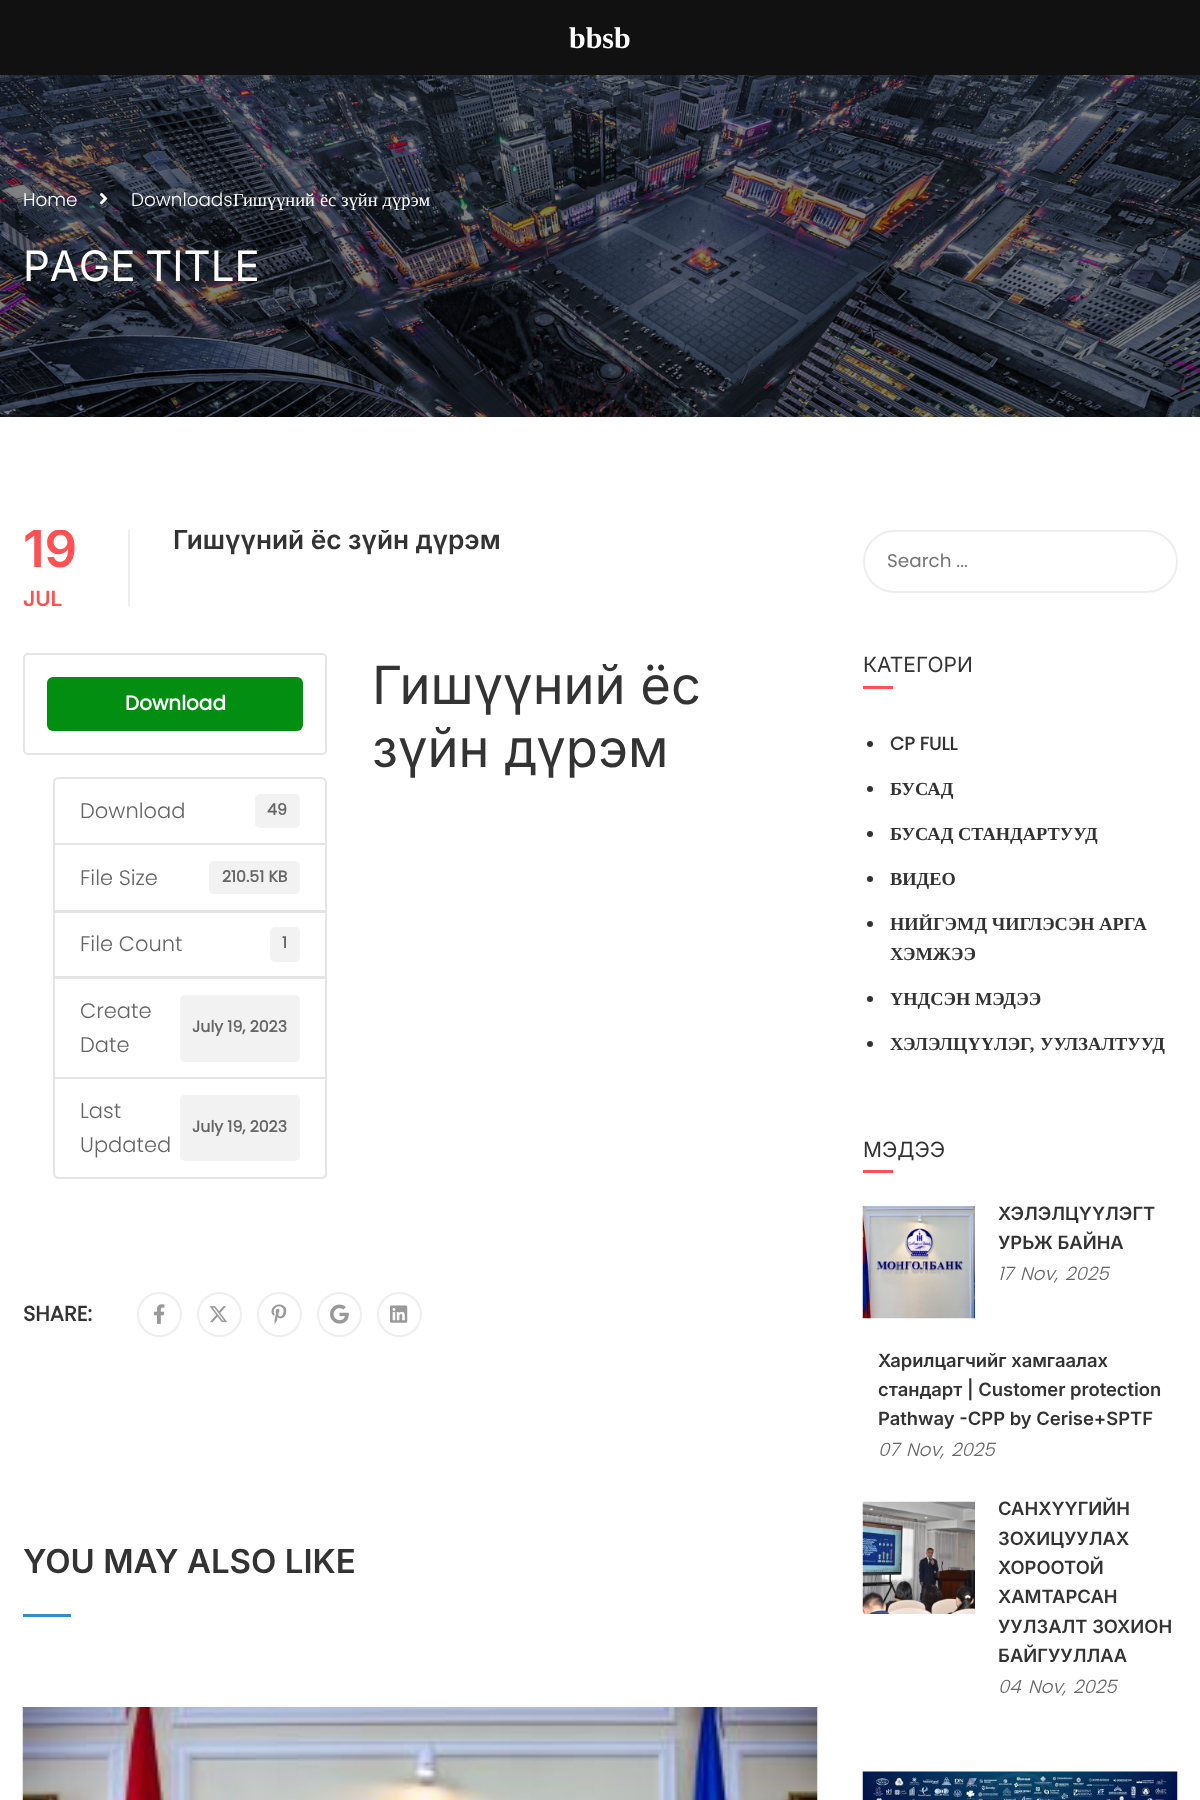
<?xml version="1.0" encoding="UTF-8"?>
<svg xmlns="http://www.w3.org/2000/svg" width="1200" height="1800">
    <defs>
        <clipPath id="clip1"><rect x="23" y="530" width="795" height="76"/></clipPath>
    </defs>
    <rect width="100%" height="100%" fill="#FFFFFF"/>
    <rect x="0" y="0" width="1200" height="75" fill="#111111"/>
    <text x="569" y="48" font-family="Liberation Serif" font-size="30" font-weight="700" fill="#FFFFFF">bbsb</text>
    <image x="0" y="75" width="1200" height="342" href="img_01.png"/>
    <text x="23" y="206" font-family="Poppins" font-size="18.4" font-weight="300" fill="#FFFFFF">Home</text>
    <image x="99" y="192" width="9" height="13" href="img_02.png"/>
    <text x="131" y="206" font-family="Poppins" font-size="18.4" font-weight="300" fill="#FFFFFF">Downloads</text>
    <text x="233" y="206" word-spacing="0.5" font-family="Liberation Serif" font-size="18.4" fill="#FFFFFF">Гишүүний ёс зүйн дүрэм</text>
    <text x="23" y="281" word-spacing="-2" font-family="Inter" font-size="42" fill="#FFFFFF">PAGE TITLE</text>
    <rect x="128" y="530" width="2" height="76" fill="#EEEEEE"/>
    <g clip-path="url(#clip1)">
        <text x="23" y="567" font-family="Inter" font-size="51" font-weight="600" fill="#FF5151">19</text>
        <text x="23" y="606" font-family="Inter" font-size="21" font-weight="600" fill="#FF5151">JUL</text>
        <text x="173" y="549" font-family="Inter" font-size="26.25" font-weight="600" fill="#333333">Гишүүний ёс зүйн дүрэм</text>
    </g>
    <rect x="24" y="654" width="302" height="100" rx="4" fill="none" stroke="#E5E5E5" stroke-width="2"/>
    <rect x="47" y="677" width="256" height="54" rx="6" fill="#018E11"/>
    <text x="125" y="710" font-family="Poppins" font-size="20" font-weight="700" fill="#FFFFFF">Download</text>
    <path d="M 59 778 H 321 C 324 778 326 780 326 783 V 844 H 54 V 783 C 54 780 56 778 59 778 Z" fill="none" stroke="#E5E5E5" stroke-width="2"/>
    <text x="80" y="818" font-family="Poppins" font-size="21" font-weight="300" fill="#666666">Download</text>
    <rect x="255" y="794" width="45" height="34" rx="5" fill="#F2F2F2"/>
    <text x="267" y="815" font-family="Poppins" font-size="15.75" font-weight="700" fill="#666666">49</text>
    <rect x="54" y="844" width="272" height="67" fill="none" stroke="#E5E5E5" stroke-width="2"/>
    <text x="80" y="885" font-family="Poppins" font-size="21" font-weight="300" fill="#666666">File Size</text>
    <rect x="209" y="861" width="91" height="33" rx="5" fill="#F2F2F2"/>
    <text x="222" y="882" font-family="Poppins" font-size="15.75" font-weight="700" fill="#666666">210.51 KB</text>
    <rect x="54" y="912" width="272" height="65" fill="none" stroke="#E5E5E5" stroke-width="2"/>
    <text x="80" y="951" font-family="Poppins" font-size="21" font-weight="300" fill="#666666">File Count</text>
    <rect x="270" y="927" width="30" height="35" rx="5" fill="#F2F2F2"/>
    <text x="282" y="948" font-family="Poppins" font-size="15.75" font-weight="700" fill="#666666">1</text>
    <rect x="54" y="978" width="272" height="100" fill="none" stroke="#E5E5E5" stroke-width="2"/>
    <text x="80" y="1018" font-family="Poppins" font-size="21" font-weight="300" fill="#666666">Create</text>
    <rect x="180" y="995" width="120" height="67" rx="5" fill="#F2F2F2"/>
    <text x="192" y="1032" font-family="Poppins" font-size="15.75" font-weight="700" fill="#666666">July 19, 2023</text>
    <text x="80" y="1052" font-family="Poppins" font-size="21" font-weight="300" fill="#666666">Date</text>
    <path d="M 54 1078 H 326 V 1173 C 326 1176 324 1178 321 1178 H 59 C 56 1178 54 1176 54 1173 Z" fill="#FFFFFF" stroke="#E5E5E5" stroke-width="2"/>
    <text x="80" y="1118" font-family="Poppins" font-size="21" font-weight="300" fill="#666666">Last</text>
    <rect x="180" y="1095" width="120" height="66" rx="5" fill="#F2F2F2"/>
    <text x="192" y="1132" font-family="Poppins" font-size="15.75" font-weight="700" fill="#666666">July 19, 2023</text>
    <text x="80" y="1152" font-family="Poppins" font-size="21" font-weight="300" fill="#666666">Updated</text>
    <text font-family="Inter" font-size="52.5" fill="#333333">
        <tspan x="372" y="704">Гишүүний ёс</tspan>
        <tspan x="372" y="767">зүйн дүрэм</tspan>
    </text>
    <text x="23" y="1321" font-family="Poppins" font-size="21" font-weight="700" fill="#333333">SHARE:</text>
    <circle cx="159.5" cy="1314.5" r="21.5" fill="none" stroke="#EEEEEE" stroke-width="2"/>
    <image x="153" y="1304" width="12" height="20" href="img_03.png"/>
    <circle cx="219.5" cy="1314.5" r="21.5" fill="none" stroke="#EEEEEE" stroke-width="2"/>
    <image x="209" y="1306" width="18" height="17" href="img_04.png"/>
    <circle cx="279.5" cy="1314.5" r="21.5" fill="none" stroke="#EEEEEE" stroke-width="2"/>
    <image x="271" y="1304" width="16" height="20" href="img_05.png"/>
    <circle cx="339.5" cy="1314.5" r="21.5" fill="none" stroke="#EEEEEE" stroke-width="2"/>
    <image x="330" y="1304" width="19" height="20" href="img_06.png"/>
    <circle cx="399.5" cy="1314.5" r="21.5" fill="none" stroke="#EEEEEE" stroke-width="2"/>
    <image x="390" y="1305" width="18" height="18" href="img_07.png"/>
    <text x="23" y="1573" font-family="Inter" font-size="33" font-weight="600" fill="#333333">YOU MAY ALSO LIKE</text>
    <rect x="23" y="1614" width="48" height="3" fill="#2E8ECE"/>
    <image x="22" y="1707" width="796" height="93" href="img_08.png"/>
    <rect x="864" y="531" width="313" height="61" rx="30.5" fill="none" stroke="#EEEEEE" stroke-width="2"/>
    <text x="887" y="567" font-family="Poppins" font-size="18.4" fill="#757575">Search ...</text>
    <text x="863" y="672" font-family="Inter" font-size="21" fill="#333333">КАТЕГОРИ</text>
    <rect x="863" y="686" width="30" height="3" fill="#FF5151"/>
    <circle cx="870" cy="744" r="3" fill="#333333"/>
    <text x="890" y="750" font-family="Poppins" font-size="18.4" font-weight="700" fill="#333333">CP FULL</text>
    <circle cx="870" cy="789" r="3" fill="#333333"/>
    <text x="890" y="795" font-family="Liberation Serif" font-size="18.4" font-weight="700" fill="#333333">БУСАД</text>
    <circle cx="870" cy="834" r="3" fill="#333333"/>
    <text x="890" y="840" font-family="Liberation Serif" font-size="18.4" font-weight="700" fill="#333333">БУСАД СТАНДАРТУУД</text>
    <circle cx="870" cy="879" r="3" fill="#333333"/>
    <text x="890" y="885" font-family="Liberation Serif" font-size="18.4" font-weight="700" fill="#333333">ВИДЕО</text>
    <circle cx="870" cy="924" r="3" fill="#333333"/>
    <text font-family="Liberation Serif" font-size="18.4" font-weight="700" fill="#333333">
        <tspan x="890" y="930">НИЙГЭМД ЧИГЛЭСЭН АРГА</tspan>
        <tspan x="890" y="960">ХЭМЖЭЭ</tspan>
    </text>
    <circle cx="870" cy="999" r="3" fill="#333333"/>
    <text x="890" y="1005" font-family="Liberation Serif" font-size="18.4" font-weight="700" fill="#333333">ҮНДСЭН МЭДЭЭ</text>
    <circle cx="870" cy="1044" r="3" fill="#333333"/>
    <text x="890" y="1050" word-spacing="1" font-family="Liberation Serif" font-size="18.4" font-weight="700" fill="#333333">ХЭЛЭЛЦҮҮЛЭГ, УУЛЗАЛТУУД</text>
    <text x="863" y="1157" font-family="Inter" font-size="21" fill="#333333">МЭДЭЭ</text>
    <rect x="863" y="1170" width="30" height="3" fill="#FF5151"/>
    <image x="862" y="1206" width="113" height="113" href="img_09.png"/>
    <text font-family="Inter" font-size="18.4" font-weight="600" fill="#333333">
        <tspan x="998" y="1220">ХЭЛЭЛЦҮҮЛЭГТ</tspan>
        <tspan x="998" y="1249">УРЬЖ БАЙНА</tspan>
    </text>
    <text x="998" y="1280" font-family="Poppins" font-size="18.4" font-weight="300" font-style="italic" fill="#666666">17</text>
    <text x="1020" y="1280" font-family="Poppins" font-size="18.4" font-weight="300" font-style="italic" fill="#666666">Nov,</text>
    <text x="1065" y="1280" font-family="Poppins" font-size="18.4" font-weight="300" font-style="italic" fill="#666666">2025</text>
    <text font-family="Inter" font-size="18.4" font-weight="600" fill="#333333">
        <tspan x="878" y="1367">Харилцагчийг хамгаалах</tspan>
        <tspan x="878" y="1396">стандарт | Customer protection</tspan>
        <tspan x="878" y="1425">Pathway -CPP by Cerise+SPTF</tspan>
    </text>
    <text x="878" y="1456" font-family="Poppins" font-size="18.4" font-weight="300" font-style="italic" fill="#666666">07</text>
    <text x="906" y="1456" font-family="Poppins" font-size="18.4" font-weight="300" font-style="italic" fill="#666666">Nov,</text>
    <text x="951" y="1456" font-family="Poppins" font-size="18.4" font-weight="300" font-style="italic" fill="#666666">2025</text>
    <image x="862" y="1501" width="113" height="113" href="img_10.png"/>
    <text font-family="Inter" font-size="18.4" font-weight="600" fill="#333333">
        <tspan x="998" y="1515">САНХҮҮГИЙН</tspan>
        <tspan x="998" y="1545">ЗОХИЦУУЛАХ</tspan>
        <tspan x="998" y="1574">ХОРООТОЙ</tspan>
        <tspan x="998" y="1603">ХАМТАРСАН</tspan>
        <tspan x="998" y="1633">УУЛЗАЛТ ЗОХИОН</tspan>
        <tspan x="998" y="1662">БАЙГУУЛЛАА</tspan>
    </text>
    <text x="998" y="1693" font-family="Poppins" font-size="18.4" font-weight="300" font-style="italic" fill="#666666">04</text>
    <text x="1028" y="1693" font-family="Poppins" font-size="18.4" font-weight="300" font-style="italic" fill="#666666">Nov,</text>
    <text x="1073" y="1693" font-family="Poppins" font-size="18.4" font-weight="300" font-style="italic" fill="#666666">2025</text>
    <image x="862" y="1771" width="316" height="29" href="img_11.png"/>
</svg>
